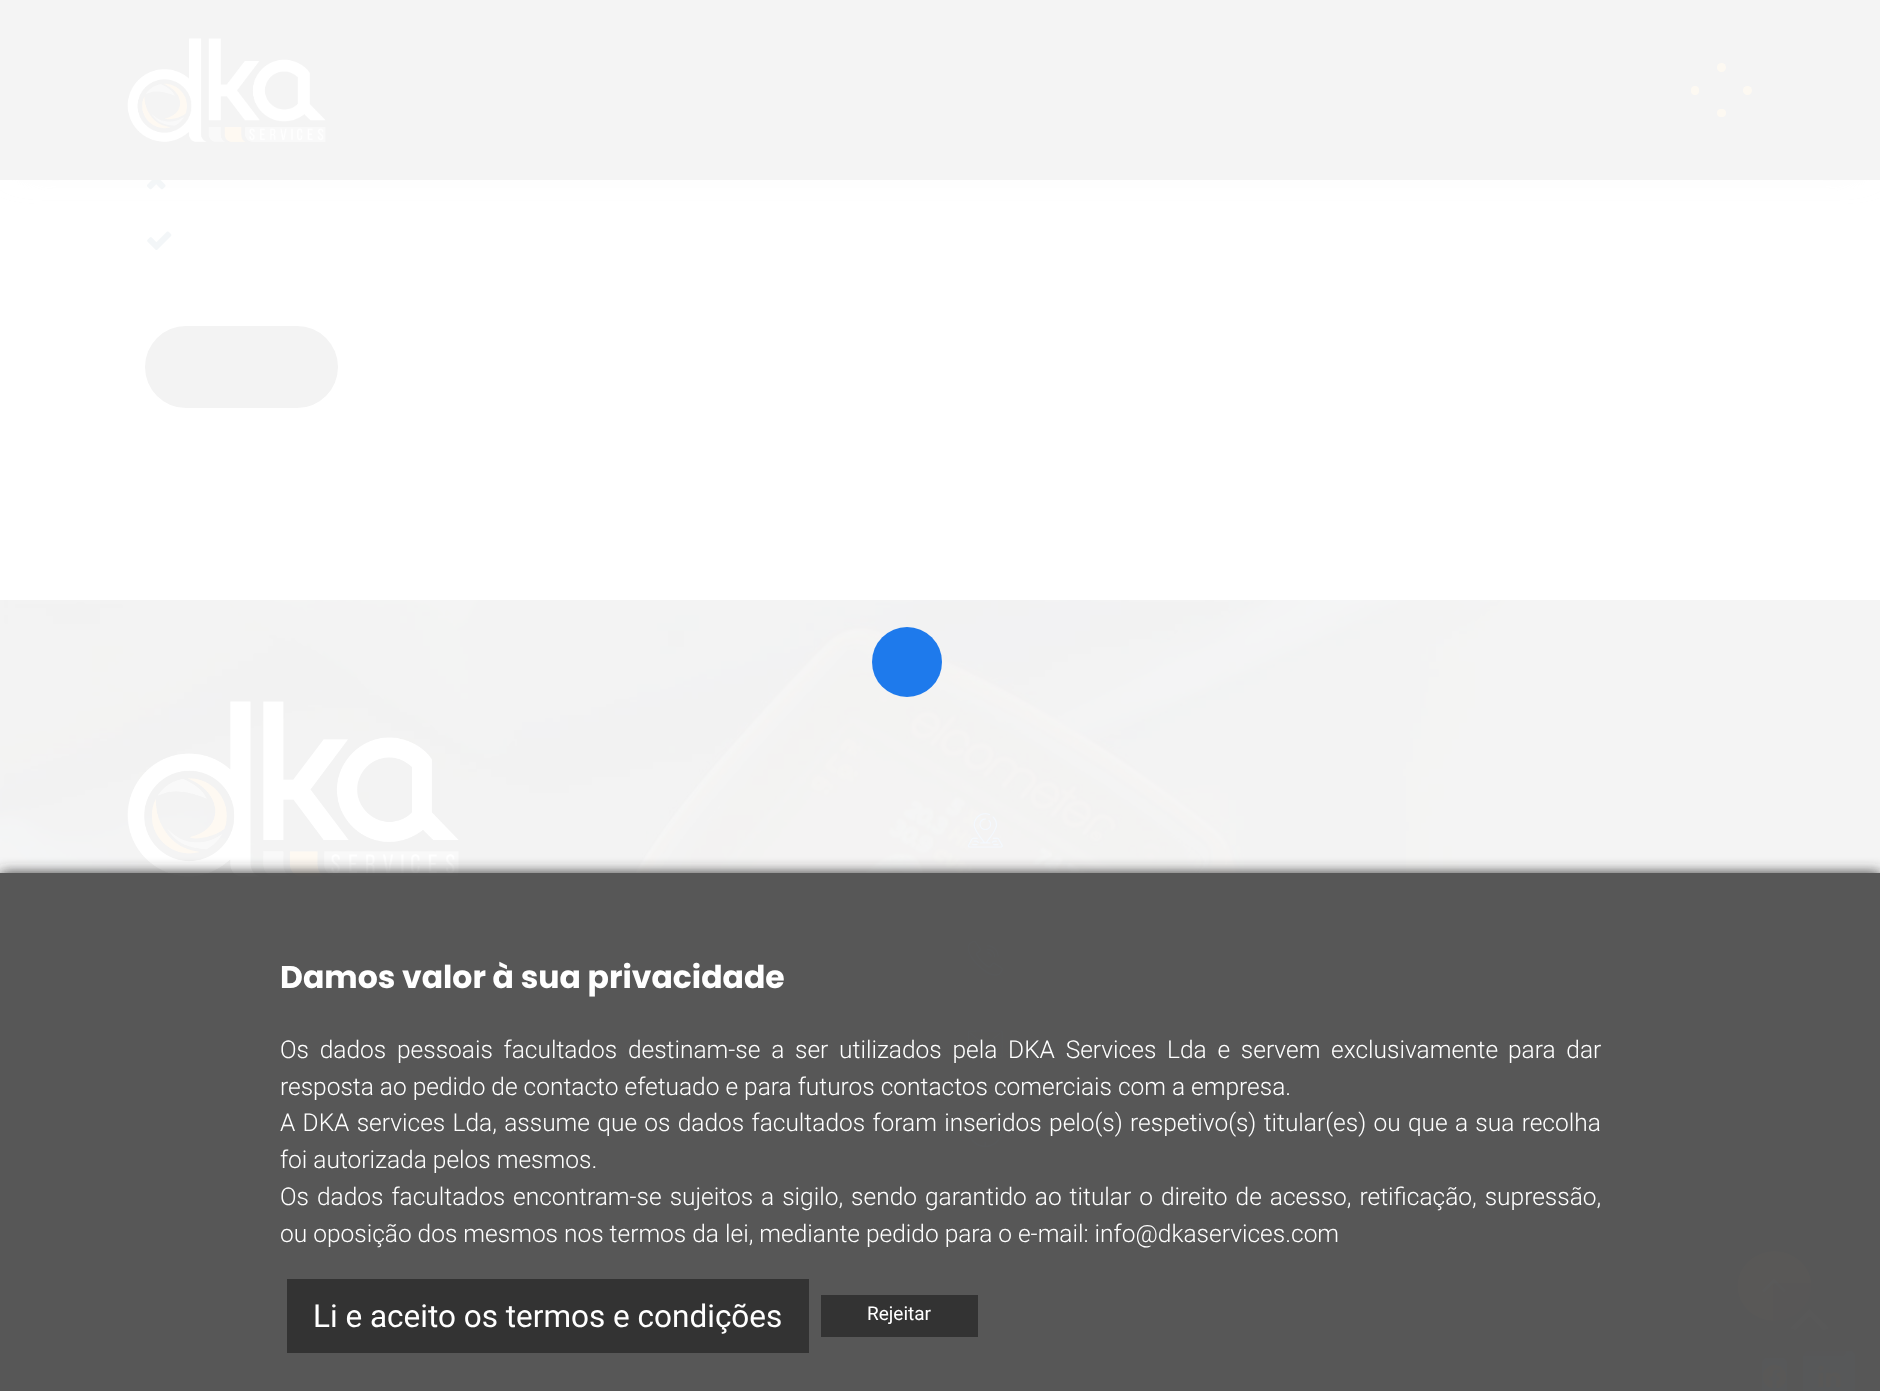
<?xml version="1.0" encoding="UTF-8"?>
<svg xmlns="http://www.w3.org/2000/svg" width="1880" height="1391">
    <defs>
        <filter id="blur1" x="-50%" y="-200%" width="200%" height="500%"><feGaussianBlur stdDeviation="17.5"/></filter>
        <clipPath id="clip1"><path d="M 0 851 H 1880 V 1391 H 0 Z M 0 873 H 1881 V 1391 H 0 Z" clip-rule="evenodd"/></clipPath>
        <filter id="blur2" x="-50%" y="-200%" width="200%" height="500%"><feGaussianBlur stdDeviation="7"/></filter>
    </defs>
    <rect width="100%" height="100%" fill="#FFFFFF"/>
    <image x="147" y="180" width="19" height="10" href="img_02.png"/>
    <rect x="18" y="18" width="1846" height="145" fill="#F2F2F2" fill-opacity="0.8" filter="url(#blur1)"/>
    <rect x="0" y="0" width="1880" height="180" fill="#F4F4F4"/>
    <image x="127" y="38" width="199" height="104" href="img_01.png"/>
    <circle cx="1721.5" cy="67.5" r="4.5" fill="#FDF9F2"/>
    <rect x="1691" y="86" width="8" height="9" rx="4" fill="#FDF9F2"/>
    <circle cx="1747.5" cy="90.5" r="4.5" fill="#FDF9F2"/>
    <rect x="1717" y="109" width="9" height="8" rx="4" fill="#FDF9F2"/>
    <image x="147" y="231" width="25" height="19" href="img_03.png"/>
    <rect x="145" y="326" width="193" height="82" rx="41" fill="#F3F3F3"/>
    <image x="0" y="600" width="1880" height="791" href="img_04.png"/>
    <image x="127" y="701" width="332" height="176" href="img_05.png"/>
    <image x="968" y="813" width="35" height="35" href="img_06.png"/>
    <image x="968" y="940" width="35" height="36" href="img_07.png"/>
    <image x="968" y="1030" width="35" height="28" href="img_08.png"/>
    <image x="968" y="1112" width="35" height="36" href="img_09.png"/>
    <rect x="1762" y="1358" width="25" height="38" rx="5" fill="#F3F8FE"/>
    <image x="1762" y="1364" width="25" height="25" href="img_10.png"/>
    <rect x="1803" y="1351" width="52" height="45" rx="5" fill="#F3F8FE"/>
    <image x="1818" y="1365" width="23" height="23" href="img_11.png"/>
    <circle cx="907" cy="662" r="35" fill="#1273EB" fill-opacity="0.95"/>
    <ellipse cx="1774.5" cy="1286" rx="37" ry="35" fill="#FDF9F2"/>
    <image x="1762" y="1278" width="24" height="15" href="img_12.png"/>
    <rect x="1773" y="1283" width="73" height="73" rx="4" fill="#F2F2F2" fill-opacity="0.5"/>
    <path d="M 1823.5 1330.5 L 1809.5 1316.5 L 1795.5 1330.5 L 1790 1328 L 1809.5 1308.5 L 1829 1328 Z" fill="#FFFFFF" fill-opacity="0.5"/>
    <g clip-path="url(#clip1)">
        <rect x="0" y="873" width="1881" height="518" fill="#303030" filter="url(#blur2)"/>
    </g>
    <rect x="0" y="873" width="1880" height="518" fill="#303030" fill-opacity="0.8"/>
    <text x="280" y="988" font-family="Poppins" font-size="31.5" font-weight="700" fill="#FFFFFF">Damos valor à sua privacidade</text>
    <text x="280" y="1058" word-spacing="4.75" font-family="Roboto" font-size="24.5" font-weight="300" fill="#FFFFFF">Os dados pessoais facultados destinam-se a ser utilizados pela DKA Services Lda e servem exclusivamente</text>
    <text x="1508" y="1058" word-spacing="4.75" font-family="Roboto" font-size="24.5" font-weight="300" fill="#FFFFFF">para dar</text>
    <text font-family="Roboto" font-size="24.5" font-weight="300" fill="#FFFFFF">
        <tspan x="280" y="1095">resposta ao pedido de contacto efetuado e para futuros contactos comerciais com a empresa.</tspan>
        <tspan x="280" y="1131" word-spacing="1.3">A DKA services Lda, assume que os dados facultados foram inseridos pelo(s) respetivo(s) titular(es) ou que a sua recolha</tspan>
        <tspan x="280" y="1168">foi autorizada pelos mesmos.</tspan>
        <tspan x="280" y="1205" word-spacing="2">Os dados facultados encontram-se sujeitos a sigilo, sendo garantido ao titular o direito de acesso, retificação, supressão,</tspan>
        <tspan x="280" y="1242">ou oposição dos mesmos nos termos da lei, mediante pedido para o e-mail: info@dkaservices.com</tspan>
    </text>
    <rect x="287" y="1279" width="522" height="74" fill="#333333"/>
    <text x="313" y="1327" font-family="Roboto" font-size="31.5" fill="#FFFFFF">Li e aceito os termos e condições</text>
    <rect x="821" y="1295" width="157" height="42" fill="#333333"/>
    <text x="867" y="1320" font-family="Roboto" font-size="19" fill="#FFFFFF">Rejeitar</text>
</svg>
